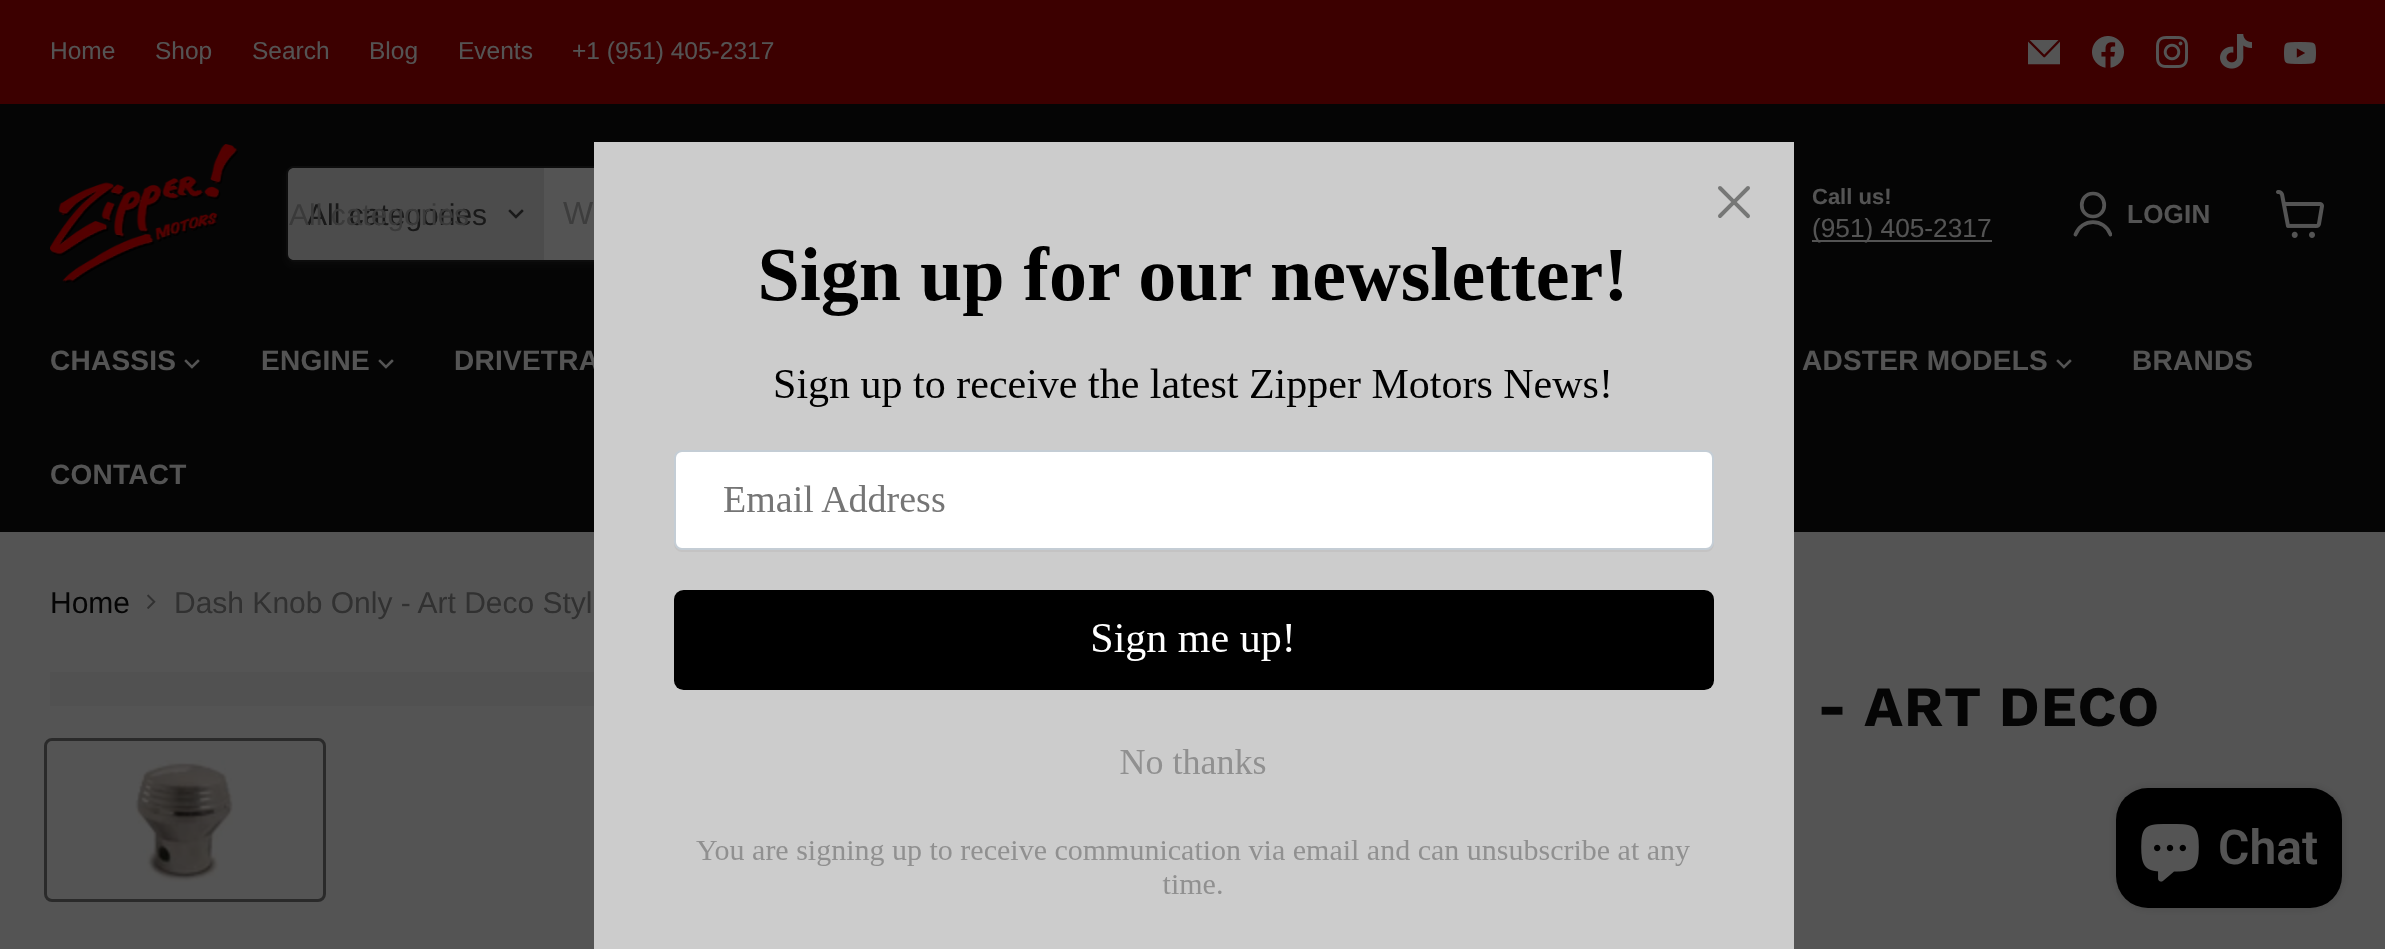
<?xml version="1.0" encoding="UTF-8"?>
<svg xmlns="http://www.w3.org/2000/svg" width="2385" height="949">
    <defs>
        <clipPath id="clip1"><path d="M 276 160 H 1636 V 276 H 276 Z M 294 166 H 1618 C 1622.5 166 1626 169.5 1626 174 V 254 C 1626 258.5 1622.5 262 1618 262 H 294 C 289.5 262 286 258.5 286 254 V 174 C 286 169.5 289.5 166 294 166 Z" clip-rule="evenodd"/></clipPath>
        <filter id="blur1" x="-50%" y="-200%" width="200%" height="500%"><feGaussianBlur stdDeviation="3"/></filter>
        <clipPath id="clip2"><rect x="2072" y="190" width="40" height="48"/></clipPath>
        <filter id="blur2" x="-50%" y="-200%" width="200%" height="500%"><feGaussianBlur stdDeviation="5"/></filter>
    </defs>
    <rect width="100%" height="100%" fill="#FFFFFF"/>
    <rect x="0" y="0" width="2385" height="104" fill="#B70000"/>
    <text x="50" y="59" font-family="Liberation Sans" font-size="24.5" fill="#FFFFFF">Home</text>
    <text x="155" y="59" font-family="Liberation Sans" font-size="24.5" fill="#FFFFFF">Shop</text>
    <text x="252" y="59" font-family="Liberation Sans" font-size="24.5" fill="#FFFFFF">Search</text>
    <text x="369" y="59" font-family="Liberation Sans" font-size="24.5" fill="#FFFFFF">Blog</text>
    <text x="458" y="59" font-family="Liberation Sans" font-size="24.5" fill="#FFFFFF">Events</text>
    <text x="572" y="59" font-family="Liberation Sans" font-size="24.5" fill="#FFFFFF">+1 (951) 405-2317</text>
    <image x="2028" y="40" width="32" height="25" href="img_02.png"/>
    <image x="2092" y="36" width="32" height="32" href="img_03.png"/>
    <image x="2156" y="36" width="32" height="32" href="img_04.png"/>
    <image x="2220" y="34" width="32" height="35" href="img_05.png"/>
    <image x="2284" y="42" width="32" height="22" href="img_06.png"/>
    <rect x="0" y="104" width="2385" height="428" fill="#121212"/>
    <image x="50" y="144" width="188" height="139" href="img_07.png"/>
    <g clip-path="url(#clip1)">
        <rect x="286" y="170" width="1340" height="96" rx="8" fill="#808080" fill-opacity="0.11" filter="url(#blur1)"/>
    </g>
    <rect x="287" y="167" width="1338" height="94" rx="7" fill="none" stroke="#808080" stroke-opacity="0.2" stroke-width="2"/>
    <path d="M 294 168 H 544 V 260 H 294 C 290.5 260 288 257.5 288 254 V 174 C 288 170.5 290.5 168 294 168 Z" fill="#E7E7E7"/>
    <text x="307" y="225" font-family="Liberation Sans" font-size="30" fill="#4D4D4D">All categories</text>
    <text x="289" y="225" font-family="Liberation Sans" font-size="30" fill="#B0B0B0">All categories</text>
    <path d="M 516 217 L 522 211 M 516 217 L 510 211" fill="none" stroke="#4D4D4D" stroke-width="2.5" stroke-linecap="square"/>
    <rect x="544" y="168" width="50" height="92" fill="#FFFFFF"/>
    <text x="563" y="224" font-family="Liberation Sans" font-size="32" fill="#B8B8B8">W</text>
    <text x="1812" y="204" font-family="Liberation Sans" font-size="22" font-weight="700" fill="#FFFFFF">Call us!</text>
    <rect x="1812" y="240" width="180" height="2" fill="#FFFFFF"/>
    <text x="1812" y="237" font-family="Liberation Sans" font-size="26.25" fill="#FFFFFF">(951) 405-2317</text>
    <path d="M 2093 216.5 C 2108 216.5 2108 193.5 2093 193.5 C 2078 193.5 2078 216.5 2093 216.5 Z" fill="none" stroke="#FFFFFF" stroke-width="3.7" stroke-linecap="round" stroke-linejoin="round"/>
    <g clip-path="url(#clip2)">
        <path d="M 2110.5 234.5 C 2104.5 218 2081.5 218 2075.5 234.5" fill="none" stroke="#FFFFFF" stroke-width="3.7" stroke-linecap="round" stroke-linejoin="round"/>
    </g>
    <text x="2127" y="223" font-family="Liberation Sans" font-size="26" font-weight="700" letter-spacing="0.25" fill="#FFFFFF">LOGIN</text>
    <image x="2276" y="190" width="48" height="48" href="img_08.png"/>
    <text x="50" y="370" font-family="Liberation Sans" font-size="28" font-weight="700" letter-spacing="0.25" fill="#FFFFFF">CHASSIS</text>
    <path d="M 192 367 L 198 361 M 192 367 L 186 361" fill="none" stroke="#FFFFFF" stroke-width="2.5" stroke-linecap="square"/>
    <text x="261" y="370" font-family="Liberation Sans" font-size="28" font-weight="700" letter-spacing="0.25" fill="#FFFFFF">ENGINE</text>
    <path d="M 386 367 L 392 361 M 386 367 L 380 361" fill="none" stroke="#FFFFFF" stroke-width="2.5" stroke-linecap="square"/>
    <text x="454" y="370" font-family="Liberation Sans" font-size="28" font-weight="700" letter-spacing="0.25" fill="#FFFFFF">DRIVETRA</text>
    <text x="1802" y="370" font-family="Liberation Sans" font-size="28" font-weight="700" letter-spacing="0.25" fill="#FFFFFF">ADSTER MODELS</text>
    <path d="M 2064 367 L 2070 361 M 2064 367 L 2058 361" fill="none" stroke="#FFFFFF" stroke-width="2.5" stroke-linecap="square"/>
    <text x="2132" y="370" font-family="Liberation Sans" font-size="28" font-weight="700" letter-spacing="0.25" fill="#FFFFFF">BRANDS</text>
    <text x="50" y="484" font-family="Liberation Sans" font-size="28" font-weight="700" letter-spacing="0.25" fill="#FFFFFF">CONTACT</text>
    <text x="50" y="613" font-family="Liberation Sans" font-size="30" fill="#121212">Home</text>
    <image x="147" y="594" width="9" height="15" href="img_09.png"/>
    <text x="174" y="613" font-family="Liberation Sans" font-size="30" fill="#949494">Dash Knob Only - Art Deco Styl</text>
    <rect x="50" y="672" width="544" height="34" fill="#F6F6F6"/>
    <rect x="45.5" y="739.5" width="279" height="161" rx="6.5" fill="none" stroke="#818181" stroke-width="3"/>
    <image x="135" y="760" width="98" height="122" href="img_10.png"/>
    <text x="1817" y="726" font-family="Work Sans" font-size="57" font-weight="700" letter-spacing="1.1" fill="#121212">- ART DECO</text>
    <rect x="2116" y="788" width="226" height="120" rx="32" fill="#000000" fill-opacity="0.15" filter="url(#blur2)"/>
    <rect x="2116" y="788" width="226" height="120" rx="32" fill="#000000"/>
    <image x="2141" y="824" width="58" height="58" href="img_11.png"/>
    <text x="2218" y="864" font-family="Roboto" font-size="48" font-weight="600" fill="#FFFFFF">Chat</text>
    <image x="0" y="0" width="2385" height="949" href="img_01.png"/>
</svg>
